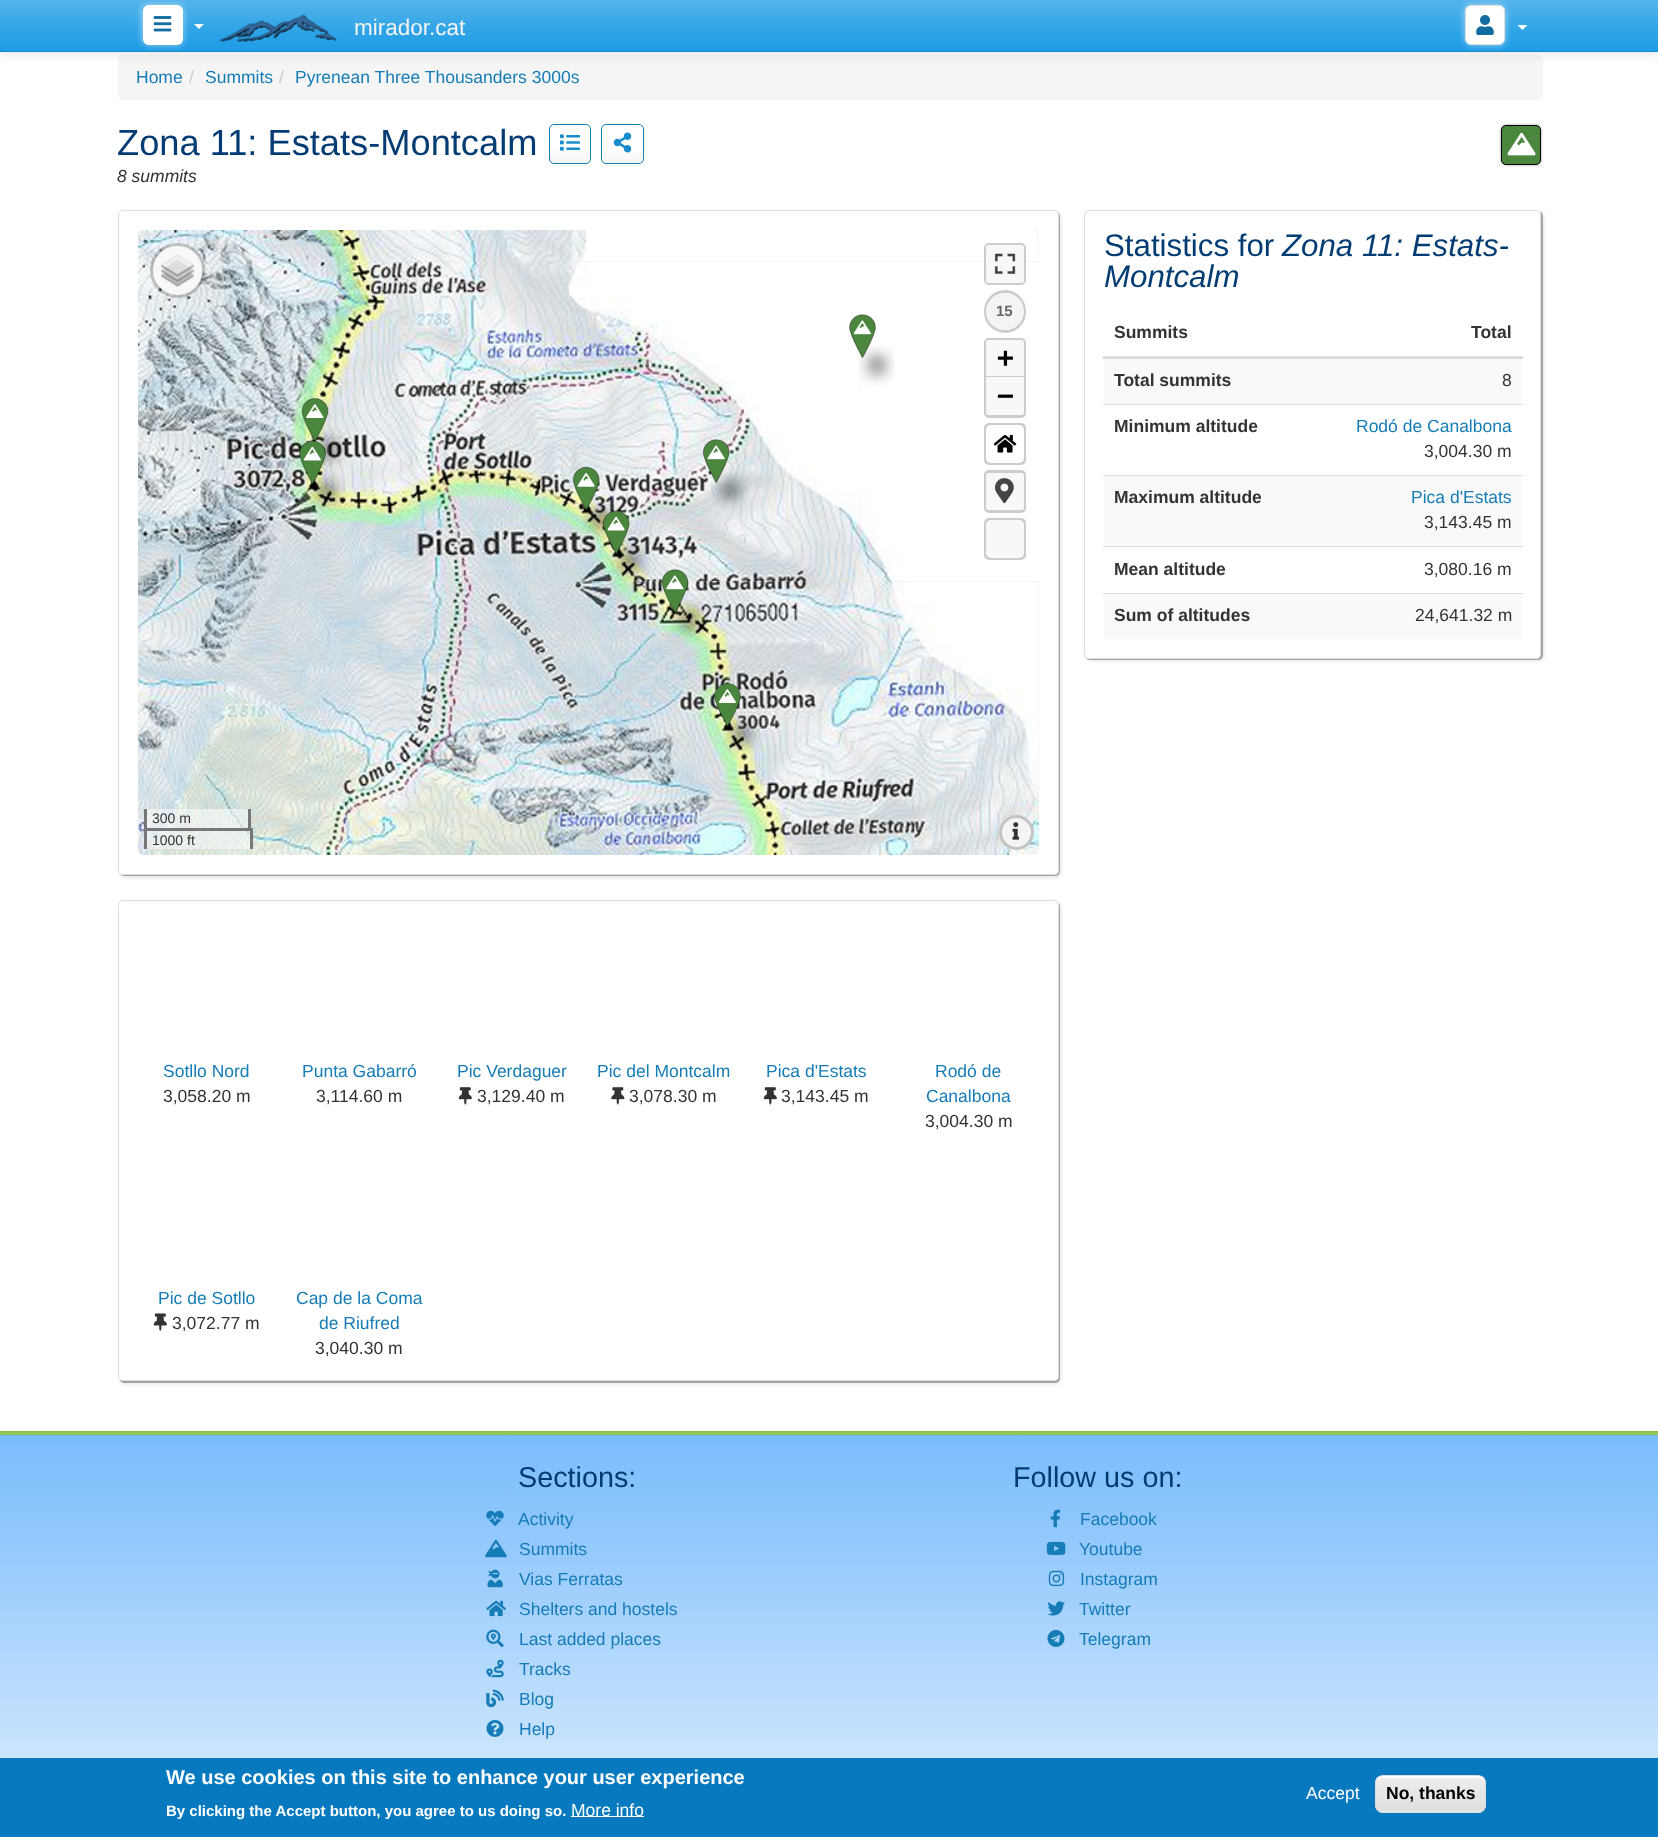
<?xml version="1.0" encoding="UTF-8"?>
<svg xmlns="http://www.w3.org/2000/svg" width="1658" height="1837">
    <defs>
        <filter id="blur1" x="-50%" y="-200%" width="200%" height="500%"><feGaussianBlur stdDeviation="6"/></filter>
        <linearGradient id="g1" gradientUnits="userSpaceOnUse" x1="829" y1="0" x2="829" y2="51"><stop offset="0" stop-color="#54B4EB"/><stop offset="0.6" stop-color="#2FA4E7"/><stop offset="1" stop-color="#1D9CE5"/></linearGradient>
        <filter id="blur2" x="-50%" y="-200%" width="200%" height="500%"><feGaussianBlur stdDeviation="3"/></filter>
        <clipPath id="clip1"><rect x="549" y="124" width="42" height="40" rx="5"/></clipPath>
        <linearGradient id="g2" gradientUnits="userSpaceOnUse" x1="570" y1="125" x2="570" y2="163"><stop offset="0" stop-color="#FFFFFF"/><stop offset="0.6" stop-color="#FFFFFF"/><stop offset="1" stop-color="#F5F5F5"/></linearGradient>
        <linearGradient id="g3" gradientUnits="userSpaceOnUse" x1="623" y1="125" x2="623" y2="163"><stop offset="0" stop-color="#FFFFFF"/><stop offset="0.6" stop-color="#FFFFFF"/><stop offset="1" stop-color="#F5F5F5"/></linearGradient>
        <filter id="blur3" x="-50%" y="-200%" width="200%" height="500%"><feGaussianBlur stdDeviation="1"/></filter>
        <filter id="blur4" x="-50%" y="-200%" width="200%" height="500%"><feGaussianBlur stdDeviation="2"/></filter>
        <filter id="blur5" x="-50%" y="-200%" width="200%" height="500%"><feGaussianBlur stdDeviation="6.5"/></filter>
        <linearGradient id="g4" gradientUnits="userSpaceOnUse" x1="829" y1="1431" x2="829" y2="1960"><stop offset="0" stop-color="#79BCFC"/><stop offset="0.2" stop-color="#92C8FC"/><stop offset="1" stop-color="#FFFFFF"/></linearGradient>
        <linearGradient id="g5" gradientUnits="userSpaceOnUse" x1="829" y1="1431" x2="829" y2="1435"><stop offset="0" stop-color="#83BF41"/><stop offset="0.6" stop-color="#97C960"/><stop offset="1" stop-color="#83BF41"/></linearGradient>
        <clipPath id="clip2"><rect x="1375" y="1775" width="111" height="38" rx="8"/></clipPath>
        <linearGradient id="g6" gradientUnits="userSpaceOnUse" x1="1431" y1="1776" x2="1431" y2="1811"><stop offset="0.05" stop-color="#EDEDED"/><stop offset="1" stop-color="#DFDFDF"/></linearGradient>
        <linearGradient id="g7" gradientUnits="userSpaceOnUse" x1="1431" y1="1811" x2="1431" y2="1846"><stop offset="0.05" stop-color="#EDEDED"/><stop offset="1" stop-color="#DFDFDF"/></linearGradient>
    </defs>
    <rect width="100%" height="100%" fill="#FFFFFF"/>
    <rect x="118" y="55" width="1425" height="45" rx="5" fill="#F5F5F5"/>
    <rect x="0" y="1" width="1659" height="53" fill="#000000" fill-opacity="0.1" filter="url(#blur1)"/>
    <rect x="0" y="0" width="1658" height="51" fill="url(#g1)"/>
    <rect x="0" y="51" width="1658" height="1" fill="#178ACC"/>
    <rect x="141" y="4" width="40" height="40" rx="6" fill="#FFFFFF" fill-opacity="0.3" filter="url(#blur2)"/>
    <rect x="144" y="6" width="40" height="40" rx="6" fill="#FFFFFF" fill-opacity="0.3" filter="url(#blur2)"/>
    <rect x="143" y="5" width="40" height="40" rx="6" fill="#FFFFFF"/>
    <image x="153" y="16" width="19" height="16" href="img_01.png"/>
    <path d="M 194 24 H 204 L 199 29 Z" fill="#FFFFFF"/>
    <image x="219" y="14" width="118" height="28" href="img_02.png"/>
    <text x="354" y="35" font-family="Liberation Sans" font-size="22.5" fill="#F4F4F4">mirador.cat</text>
    <rect x="1464" y="4" width="40" height="40" rx="6" fill="#FFFFFF" fill-opacity="0.3" filter="url(#blur2)"/>
    <rect x="1466" y="6" width="40" height="40" rx="6" fill="#FFFFFF" fill-opacity="0.3" filter="url(#blur2)"/>
    <rect x="1465.5" y="5.5" width="39" height="39" rx="5.5" fill="#FFFFFF" stroke="#DDDDDD"/>
    <image x="1476" y="15" width="18" height="20" href="img_03.png"/>
    <path d="M 1517.5 25 H 1527.5 L 1522.5 30 Z" fill="#FFFFFF"/>
    <text x="136" y="83" font-family="Liberation Sans" font-size="17.5" fill="#157CB6">Home</text>
    <text x="189" y="83" font-family="Liberation Sans" font-size="17.5" fill="#CCCCCC">/</text>
    <text x="205" y="83" font-family="Liberation Sans" font-size="17.5" fill="#157CB6">Summits</text>
    <text x="279" y="83" font-family="Liberation Sans" font-size="17.5" fill="#CCCCCC">/</text>
    <text x="295" y="83" font-family="Liberation Sans" font-size="17.5" fill="#157CB6">Pyrenean Three Thousanders 3000s</text>
    <text x="117" y="155" font-family="Liberation Sans" font-size="36.25" fill="#033C73">Zona 11: Estats-Montcalm</text>
    <g clip-path="url(#clip1)">
        <rect x="550" y="125" width="40" height="38" fill="url(#g2)"/>
    </g>
    <rect x="549.5" y="124.5" width="41" height="39" rx="4.5" fill="none" stroke="#157CB6"/>
    <image x="560" y="134" width="20" height="17" href="img_04.png"/>
    <rect x="603" y="152" width="40" height="11" fill="url(#g3)"/>
    <rect x="601.5" y="124.5" width="42" height="39" rx="4.5" fill="none" stroke="#157CB6"/>
    <image x="613" y="132" width="19" height="21" href="img_05.png"/>
    <text x="117" y="182" font-family="Liberation Sans" font-size="17.5" font-style="italic" fill="#333333">8 summits</text>
    <rect x="1501" y="125" width="40" height="40" rx="5" fill="#323232" fill-opacity="0.5" filter="url(#blur3)"/>
    <rect x="1501.5" y="125.5" width="39" height="39" rx="4.5" fill="#4B863E" stroke="#000000"/>
    <image x="1507" y="132" width="29" height="24" href="img_06.png"/>
    <rect x="120" y="213" width="941" height="665" rx="5" fill="#000000" fill-opacity="0.1" filter="url(#blur4)"/>
    <path d="M 121 875 C 121 875 123 876 124 876 H 1055 C 1058 876 1060 874 1060 871 V 216 C 1060 214 1059 213 1057 212 C 1058 213 1059 214 1059 215 V 870 C 1059 873 1057 875 1054 875 H 122 Z" fill="#000000" fill-opacity="0.3"/>
    <rect x="118.5" y="210.5" width="940" height="664" rx="4.5" fill="#FFFFFF" stroke="#DDDDDD"/>
    <rect x="138" y="230" width="901" height="625" rx="6" fill="#DDDDDD"/>
    <image x="138" y="230" width="82" height="31" href="img_07.png"/>
    <image x="220" y="230" width="320" height="31" href="img_08.png"/>
    <image x="540" y="230" width="320" height="31" href="img_09.png"/>
    <image x="860" y="230" width="179" height="31" href="img_10.png"/>
    <image x="219" y="261" width="321" height="321" href="img_12.png"/>
    <image x="138" y="261" width="82" height="320" href="img_11.png"/>
    <image x="539" y="261" width="321" height="321" href="img_13.png"/>
    <image x="860" y="261" width="179" height="320" href="img_14.png"/>
    <image x="219" y="581" width="321" height="274" href="img_16.png"/>
    <image x="138" y="581" width="82" height="274" href="img_15.png"/>
    <image x="539" y="581" width="321" height="274" href="img_17.png"/>
    <image x="859" y="581" width="180" height="274" href="img_18.png"/>
    <rect x="868" y="355" width="18" height="20" fill="#000000" fill-opacity="0.4" filter="url(#blur5)"/>
    <image x="849" y="314" width="27" height="45" href="img_19.png"/>
    <image x="853" y="320" width="18" height="15" href="img_20.png"/>
    <rect x="320" y="439" width="19" height="20" fill="#000000" fill-opacity="0.4" filter="url(#blur5)"/>
    <image x="301" y="398" width="28" height="44" href="img_21.png"/>
    <image x="306" y="404" width="18" height="14" href="img_22.png"/>
    <rect x="318" y="481" width="18" height="20" fill="#000000" fill-opacity="0.4" filter="url(#blur5)"/>
    <image x="299" y="440" width="27" height="44" href="img_23.png"/>
    <image x="303" y="446" width="18" height="15" href="img_24.png"/>
    <rect x="591" y="508" width="19" height="20" fill="#000000" fill-opacity="0.4" filter="url(#blur5)"/>
    <image x="573" y="466" width="27" height="44" href="img_25.png"/>
    <image x="577" y="473" width="18" height="14" href="img_26.png"/>
    <rect x="721" y="480" width="19" height="20" fill="#000000" fill-opacity="0.4" filter="url(#blur5)"/>
    <image x="703" y="439" width="27" height="45" href="img_27.png"/>
    <image x="707" y="445" width="18" height="15" href="img_28.png"/>
    <rect x="621" y="551" width="19" height="20" fill="#000000" fill-opacity="0.4" filter="url(#blur5)"/>
    <image x="603" y="510" width="27" height="44" href="img_29.png"/>
    <image x="607" y="516" width="18" height="15" href="img_30.png"/>
    <rect x="680" y="610" width="19" height="20" fill="#000000" fill-opacity="0.4" filter="url(#blur5)"/>
    <image x="661" y="569" width="28" height="44" href="img_31.png"/>
    <image x="666" y="575" width="18" height="15" href="img_32.png"/>
    <rect x="733" y="724" width="18" height="20" fill="#000000" fill-opacity="0.4" filter="url(#blur5)"/>
    <image x="714" y="683" width="27" height="44" href="img_33.png"/>
    <image x="718" y="689" width="18" height="14" href="img_34.png"/>
    <circle cx="178" cy="270" r="25" fill="#F8F8F8"/>
    <image x="161" y="255" width="33" height="32" href="img_35.png"/>
    <circle cx="177.5" cy="270.5" r="26" fill="none" stroke="#000000" stroke-opacity="0.2" stroke-width="3"/>
    <rect x="985.5" y="244.5" width="39" height="39" rx="3.5" fill="none" stroke="#000000" stroke-opacity="0.2" stroke-width="3"/>
    <rect x="986" y="245" width="38" height="38" rx="2.5" fill="#F8F8F8"/>
    <image x="994" y="253" width="22" height="21" href="img_36.png"/>
    <rect x="985.5" y="291.5" width="39" height="40" rx="19.5" fill="none" stroke="#CCCCCC" stroke-width="3"/>
    <rect x="986" y="293" width="38" height="37" rx="18.5" fill="#F4F4F4"/>
    <text x="996" y="316" font-family="Liberation Sans" font-size="15" font-weight="700" fill="#666666">15</text>
    <rect x="985.5" y="339.5" width="39" height="77" rx="3.5" fill="none" stroke="#CCCCCC" stroke-width="3"/>
    <path d="M 988.5 340 H 1021.5 C 1023 340 1024 341 1024 342.5 V 378 H 986 V 342.5 C 986 341 987 340 988.5 340 Z" fill="#F8F8F8"/>
    <rect x="986" y="376" width="38" height="1" fill="#CCCCCC"/>
    <text x="997" y="367" font-family="DejaVu Sans Mono" font-size="28" font-weight="700" fill="#000000">+</text>
    <path d="M 986 378 H 1024 V 412.5 C 1024 414 1023 415 1021.5 415 H 988.5 C 987 415 986 414 986 412.5 Z" fill="#F8F8F8"/>
    <text x="997" y="405" font-family="DejaVu Sans Mono" font-size="28" font-weight="700" fill="#000000">−</text>
    <rect x="985.5" y="424.5" width="39" height="39" rx="3.5" fill="none" stroke="#CCCCCC" stroke-width="3"/>
    <rect x="986" y="425" width="38" height="38" rx="5" fill="#FFFFFF"/>
    <image x="993" y="435" width="24" height="18" href="img_37.png"/>
    <rect x="985.5" y="471.5" width="39" height="40" rx="3.5" fill="none" stroke="#CCCCCC" stroke-width="3"/>
    <rect x="986" y="473" width="38" height="37" rx="2.5" fill="#F8F8F8"/>
    <image x="995" y="478" width="19" height="26" href="img_38.png"/>
    <rect x="985.5" y="519.5" width="39" height="39" rx="3.5" fill="none" stroke="#CCCCCC" stroke-width="3"/>
    <rect x="986" y="520" width="38" height="38" rx="5" fill="#F8F8F8"/>
    <rect x="147" y="809" width="101" height="19" fill="#FFFFFF" fill-opacity="0.5"/>
    <rect x="248" y="809" width="3" height="21" fill="#777777"/>
    <rect x="144" y="809" width="3" height="21" fill="#777777"/>
    <text x="152" y="823" font-family="Liberation Sans" font-size="14" fill="#333333">300 m</text>
    <rect x="147" y="831" width="103" height="18" fill="#FFFFFF" fill-opacity="0.5"/>
    <rect x="144" y="828" width="109" height="3" fill="#777777"/>
    <rect x="250" y="828" width="3" height="21" fill="#777777"/>
    <rect x="144" y="828" width="3" height="21" fill="#777777"/>
    <text x="152" y="845" font-family="Liberation Sans" font-size="14" fill="#333333">1000 ft</text>
    <circle cx="1016.5" cy="832.5" r="17.5" fill="#F4F4F4"/>
    <circle cx="1016.5" cy="832.5" r="16" fill="none" stroke="#000000" stroke-opacity="0.2" stroke-width="3"/>
    <image x="1012" y="822" width="8" height="18" href="img_39.png"/>
    <rect x="120" y="903" width="941" height="481" rx="5" fill="#000000" fill-opacity="0.1" filter="url(#blur4)"/>
    <path d="M 120 1380 C 120 1382 122 1383 124 1383 H 1055 C 1058 1383 1060 1381 1060 1378 V 906 C 1060 904 1059 903 1057 902 C 1058 903 1059 904 1059 905 V 1376 C 1059 1379 1057 1381 1054 1381 H 122 Z" fill="#000000" fill-opacity="0.3"/>
    <rect x="118.5" y="900.5" width="940" height="480" rx="4.5" fill="#FFFFFF" stroke="#DDDDDD"/>
    <text x="163" y="1077" font-family="Liberation Sans" font-size="17.5" fill="#157CB6">Sotllo Nord</text>
    <text x="163" y="1102" font-family="Liberation Sans" font-size="17.5" fill="#333333">3,058.20 m</text>
    <text x="302" y="1077" font-family="Liberation Sans" font-size="17.5" fill="#157CB6">Punta Gabarró</text>
    <text x="316" y="1102" font-family="Liberation Sans" font-size="17.5" fill="#333333">3,114.60 m</text>
    <text x="457" y="1077" font-family="Liberation Sans" font-size="17.5" fill="#157CB6">Pic Verdaguer</text>
    <image x="458" y="1087" width="14" height="18" href="img_40.png"/>
    <text x="477" y="1102" font-family="Liberation Sans" font-size="17.5" fill="#333333">3,129.40 m</text>
    <text x="597" y="1077" font-family="Liberation Sans" font-size="17.5" fill="#157CB6">Pic del Montcalm</text>
    <image x="611" y="1087" width="14" height="18" href="img_41.png"/>
    <text x="629" y="1102" font-family="Liberation Sans" font-size="17.5" fill="#333333">3,078.30 m</text>
    <text x="766" y="1077" font-family="Liberation Sans" font-size="17.5" fill="#157CB6">Pica d'Estats</text>
    <image x="763" y="1087" width="14" height="18" href="img_40.png"/>
    <text x="781" y="1102" font-family="Liberation Sans" font-size="17.5" fill="#333333">3,143.45 m</text>
    <text x="935" y="1077" font-family="Liberation Sans" font-size="17.5" fill="#157CB6">Rodó de</text>
    <text x="926" y="1102" font-family="Liberation Sans" font-size="17.5" fill="#157CB6">Canalbona</text>
    <text x="925" y="1127" font-family="Liberation Sans" font-size="17.5" fill="#333333">3,004.30 m</text>
    <text x="158" y="1304" font-family="Liberation Sans" font-size="17.5" fill="#157CB6">Pic de Sotllo</text>
    <image x="153" y="1313" width="14" height="18" href="img_42.png"/>
    <text x="172" y="1329" font-family="Liberation Sans" font-size="17.5" fill="#333333">3,072.77 m</text>
    <text x="296" y="1304" font-family="Liberation Sans" font-size="17.5" fill="#157CB6">Cap de la Coma</text>
    <text x="319" y="1329" font-family="Liberation Sans" font-size="17.5" fill="#157CB6">de Riufred</text>
    <text x="315" y="1354" font-family="Liberation Sans" font-size="17.5" fill="#333333">3,040.30 m</text>
    <rect x="1086" y="213" width="458" height="448" rx="5" fill="#000000" fill-opacity="0.1" filter="url(#blur4)"/>
    <path d="M 1086 658 C 1087 659 1088 660 1090 660 H 1538 C 1541 660 1543 658 1543 655 V 216 C 1543 214 1542 212 1540 211 C 1541 212 1541 214 1541 215 V 654 C 1541 657 1539 659 1536 659 H 1089 Z" fill="#000000" fill-opacity="0.3"/>
    <rect x="1084.5" y="210.5" width="456" height="448" rx="4.5" fill="#FFFFFF" stroke="#DDDDDD"/>
    <text x="1104" y="256" font-family="Liberation Sans" font-size="31.25" fill="#033C73">Statistics for</text>
    <text x="1282" y="256" font-family="Liberation Sans" font-size="31.25" font-style="italic" fill="#033C73">Zona 11: Estats-</text>
    <text x="1104" y="287" font-family="Liberation Sans" font-size="31.25" font-style="italic" fill="#033C73">Montcalm</text>
    <text x="1114" y="338" font-family="Liberation Sans" font-size="17.5" font-weight="700" fill="#333333">Summits</text>
    <rect x="1103" y="356" width="420" height="3" fill="#DDDDDD"/>
    <text x="1471" y="338" font-family="Liberation Sans" font-size="17.5" font-weight="700" fill="#333333">Total</text>
    <rect x="1104" y="359" width="417" height="45" fill="#F9F9F9"/>
    <text x="1114" y="386" font-family="Liberation Sans" font-size="17.5" font-weight="700" fill="#333333">Total summits</text>
    <text x="1502" y="386" font-family="Liberation Sans" font-size="17.5" fill="#333333">8</text>
    <text x="1114" y="432" font-family="Liberation Sans" font-size="17.5" font-weight="700" fill="#333333">Minimum altitude</text>
    <rect x="1103" y="404" width="420" height="1" fill="#DDDDDD"/>
    <text x="1356" y="432" font-family="Liberation Sans" font-size="17.5" fill="#157CB6">Rodó de Canalbona</text>
    <text x="1424" y="457" font-family="Liberation Sans" font-size="17.5" fill="#333333">3,004.30 m</text>
    <rect x="1104" y="476" width="417" height="70" fill="#F9F9F9"/>
    <text x="1114" y="503" font-family="Liberation Sans" font-size="17.5" font-weight="700" fill="#333333">Maximum altitude</text>
    <rect x="1103" y="475" width="420" height="1" fill="#DDDDDD"/>
    <text x="1411" y="503" font-family="Liberation Sans" font-size="17.5" fill="#157CB6">Pica d'Estats</text>
    <text x="1424" y="528" font-family="Liberation Sans" font-size="17.5" fill="#333333">3,143.45 m</text>
    <text x="1114" y="575" font-family="Liberation Sans" font-size="17.5" font-weight="700" fill="#333333">Mean altitude</text>
    <rect x="1103" y="546" width="420" height="1" fill="#DDDDDD"/>
    <text x="1424" y="575" font-family="Liberation Sans" font-size="17.5" fill="#333333">3,080.16 m</text>
    <rect x="1104" y="594" width="417" height="45" fill="#F9F9F9"/>
    <text x="1114" y="621" font-family="Liberation Sans" font-size="17.5" font-weight="700" fill="#333333">Sum of altitudes</text>
    <rect x="1103" y="593" width="420" height="1" fill="#DDDDDD"/>
    <text x="1415" y="621" font-family="Liberation Sans" font-size="17.5" fill="#333333">24,641.32 m</text>
    <rect x="0" y="1435" width="1658" height="323" fill="url(#g4)"/>
    <rect x="0" y="1431" width="1658" height="4" fill="url(#g5)"/>
    <text x="518" y="1487" font-family="Liberation Sans" font-size="28.75" fill="#033C73">Sections:</text>
    <image x="486" y="1510" width="18" height="16" href="img_43.png"/>
    <text x="518" y="1525" font-family="Liberation Sans" font-size="17.5" fill="#157CB6">Activity</text>
    <image x="485" y="1539" width="22" height="19" href="img_44.png"/>
    <text x="519" y="1555" font-family="Liberation Sans" font-size="17.5" fill="#157CB6">Summits</text>
    <image x="487" y="1569" width="16" height="19" href="img_45.png"/>
    <text x="519" y="1585" font-family="Liberation Sans" font-size="17.5" fill="#157CB6">Vias Ferratas</text>
    <image x="486" y="1600" width="20" height="17" href="img_46.png"/>
    <text x="519" y="1615" font-family="Liberation Sans" font-size="17.5" fill="#157CB6">Shelters and hostels</text>
    <image x="486" y="1629" width="18" height="19" href="img_47.png"/>
    <text x="519" y="1645" font-family="Liberation Sans" font-size="17.5" fill="#157CB6">Last added places</text>
    <image x="486" y="1659" width="18" height="19" href="img_48.png"/>
    <text x="519" y="1675" font-family="Liberation Sans" font-size="17.5" fill="#157CB6">Tracks</text>
    <image x="486" y="1689" width="18" height="19" href="img_49.png"/>
    <text x="519" y="1705" font-family="Liberation Sans" font-size="17.5" fill="#157CB6">Blog</text>
    <image x="486" y="1720" width="18" height="17" href="img_50.png"/>
    <text x="519" y="1735" font-family="Liberation Sans" font-size="17.5" fill="#157CB6">Help</text>
    <text x="1013" y="1487" font-family="Liberation Sans" font-size="28.75" fill="#033C73">Follow us on:</text>
    <image x="1050" y="1509" width="11" height="19" href="img_51.png"/>
    <text x="1080" y="1525" font-family="Liberation Sans" font-size="17.5" fill="#157CB6">Facebook</text>
    <image x="1046" y="1541" width="20" height="14" href="img_52.png"/>
    <text x="1079" y="1555" font-family="Liberation Sans" font-size="17.5" fill="#157CB6">Youtube</text>
    <image x="1048" y="1570" width="17" height="17" href="img_53.png"/>
    <text x="1080" y="1585" font-family="Liberation Sans" font-size="17.5" fill="#157CB6">Instagram</text>
    <image x="1047" y="1601" width="18" height="15" href="img_54.png"/>
    <text x="1079" y="1615" font-family="Liberation Sans" font-size="17.5" fill="#157CB6">Twitter</text>
    <image x="1047" y="1630" width="18" height="17" href="img_55.png"/>
    <text x="1079" y="1645" font-family="Liberation Sans" font-size="17.5" fill="#157CB6">Telegram</text>
    <rect x="0" y="1758" width="1658" height="79" fill="#0779BF"/>
    <text x="166" y="1784" font-family="Liberation Sans" font-size="20" font-weight="700" fill="#FFFFFF">We use cookies on this site to enhance your user experience</text>
    <text x="166" y="1816" font-family="Liberation Sans" font-size="15" font-weight="700" fill="#FFFFFF">By clicking the Accept button, you agree to us doing so.</text>
    <rect x="571" y="1816" width="73" height="1" fill="#FFFFFF"/>
    <text x="571" y="1816" font-family="Liberation Sans" font-size="17.5" fill="#FFFFFF">More info</text>
    <text x="1306" y="1799" font-family="Liberation Sans" font-size="17.5" fill="#FFFFFF">Accept</text>
    <g clip-path="url(#clip2)">
        <rect x="1375" y="1776" width="111" height="35" fill="url(#g6)"/>
        <rect x="1375" y="1811" width="111" height="2" fill="url(#g7)"/>
    </g>
    <path d="M 1382 1778 H 1479 C 1482 1778 1485 1780 1485 1784 C 1485 1772 1472 1776 1463 1776 H 1398 C 1389 1776 1376 1772 1376 1784 C 1376 1780 1379 1778 1382 1778 Z" fill="#FFFFFF"/>
    <rect x="1375.5" y="1775.5" width="110" height="37" rx="7.5" fill="none" stroke="#DCDCDC"/>
    <text x="1386" y="1799" font-family="Liberation Sans" font-size="17.5" font-weight="700" fill="#000000">No, thanks</text>
</svg>
